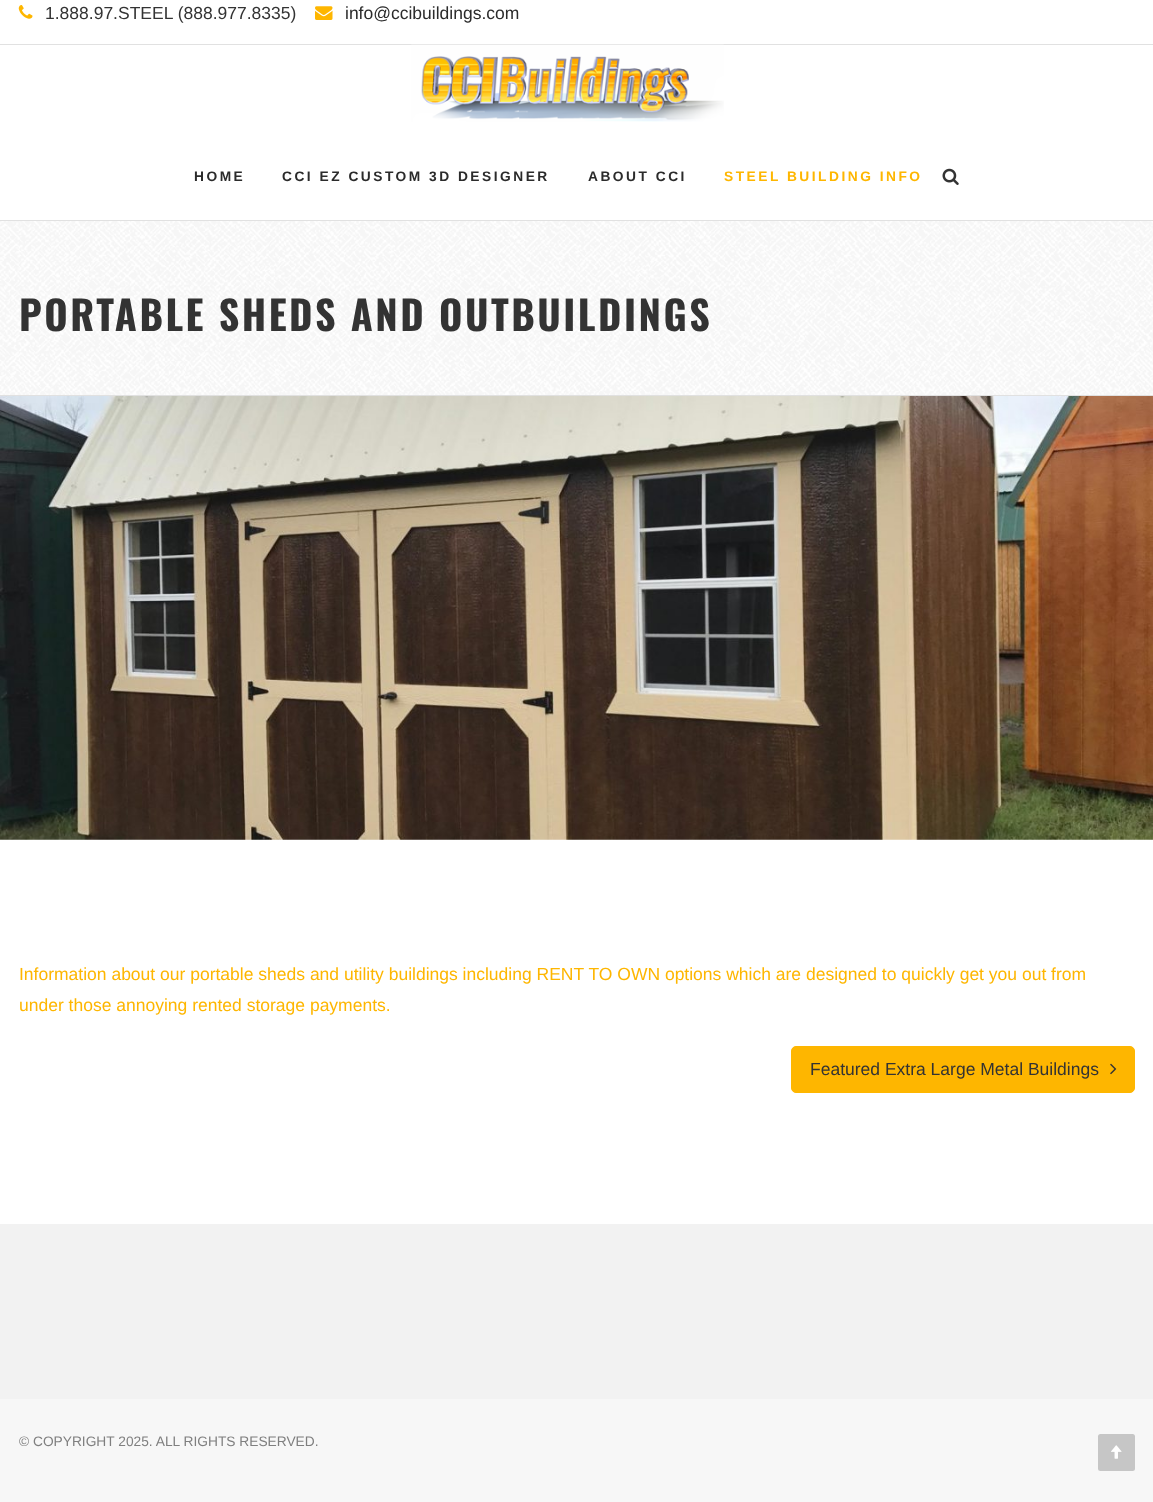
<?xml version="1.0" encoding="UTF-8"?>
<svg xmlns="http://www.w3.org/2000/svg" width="1153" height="1502">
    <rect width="100%" height="100%" fill="#FFFFFF"/>
    <rect x="0" y="44" width="1153" height="1" fill="#E1E1E1"/>
    <image x="18" y="5" width="15" height="14" href="img_01.png"/>
    <text x="45" y="19" font-family="Arimo" font-size="17.5" fill="#333333">1.888.97.STEEL (888.977.8335)</text>
    <image x="315" y="6" width="18" height="14" href="img_02.png"/>
    <text x="345" y="19" font-family="Arimo" font-size="17.5" fill="#2B2B2B">info@ccibuildings.com</text>
    <image x="411" y="44" width="313" height="78" href="img_03.png"/>
    <text x="194" y="181" font-family="Arimo" font-size="13.75" font-weight="700" letter-spacing="2.5" fill="#2B2B2B">HOME</text>
    <text x="282" y="181" font-family="Arimo" font-size="13.75" font-weight="700" letter-spacing="2.5" fill="#2B2B2B">CCI EZ CUSTOM 3D DESIGNER</text>
    <text x="588" y="181" font-family="Arimo" font-size="13.75" font-weight="700" letter-spacing="2.5" fill="#2B2B2B">ABOUT CCI</text>
    <text x="724" y="181" font-family="Arimo" font-size="13.75" font-weight="700" letter-spacing="2.5" fill="#FEB600">STEEL BUILDING INFO</text>
    <image x="942" y="168" width="17" height="17" href="img_04.png"/>
    <rect x="0" y="220" width="1153" height="1" fill="#E1E1E1"/>
    <image x="0" y="221" width="1153" height="174" href="img_05.png"/>
    <rect x="0" y="395" width="1153" height="1" fill="#E1E1E1"/>
    <text x="19" y="331" font-family="Oswald" font-size="40" font-weight="700" letter-spacing="2.5" fill="#333333">PORTABLE SHEDS AND OUTBUILDINGS</text>
    <image x="0" y="396" width="1153" height="444" href="img_06.png"/>
    <text font-family="Arimo" font-size="17.5" fill="#FEB600">
        <tspan x="19" y="980">Information about our portable sheds and utility buildings including RENT TO OWN options which are designed to quickly get you out from</tspan>
        <tspan x="19" y="1011">under those annoying rented storage payments.</tspan>
    </text>
    <rect x="791.5" y="1046.5" width="343" height="46" rx="4.5" fill="#FEB600" stroke="#FEB600"/>
    <text x="810" y="1075" font-family="Arimo" font-size="17.5" fill="#333333">Featured Extra Large Metal Buildings</text>
    <image x="1110" y="1063" width="7" height="12" href="img_07.png"/>
    <rect x="0" y="1224" width="1153" height="175" fill="#F2F2F2"/>
    <rect x="0" y="1399" width="1153" height="103" fill="#F7F7F7"/>
    <text x="19" y="1446" font-family="Arimo" font-size="13.75" fill="#7F7F7F">© COPYRIGHT 2025. ALL RIGHTS RESERVED.</text>
    <rect x="1098" y="1434" width="37" height="37" rx="2.5" fill="#C6C6C6"/>
    <image x="1111" y="1445" width="11" height="14" href="img_08.png"/>
</svg>
